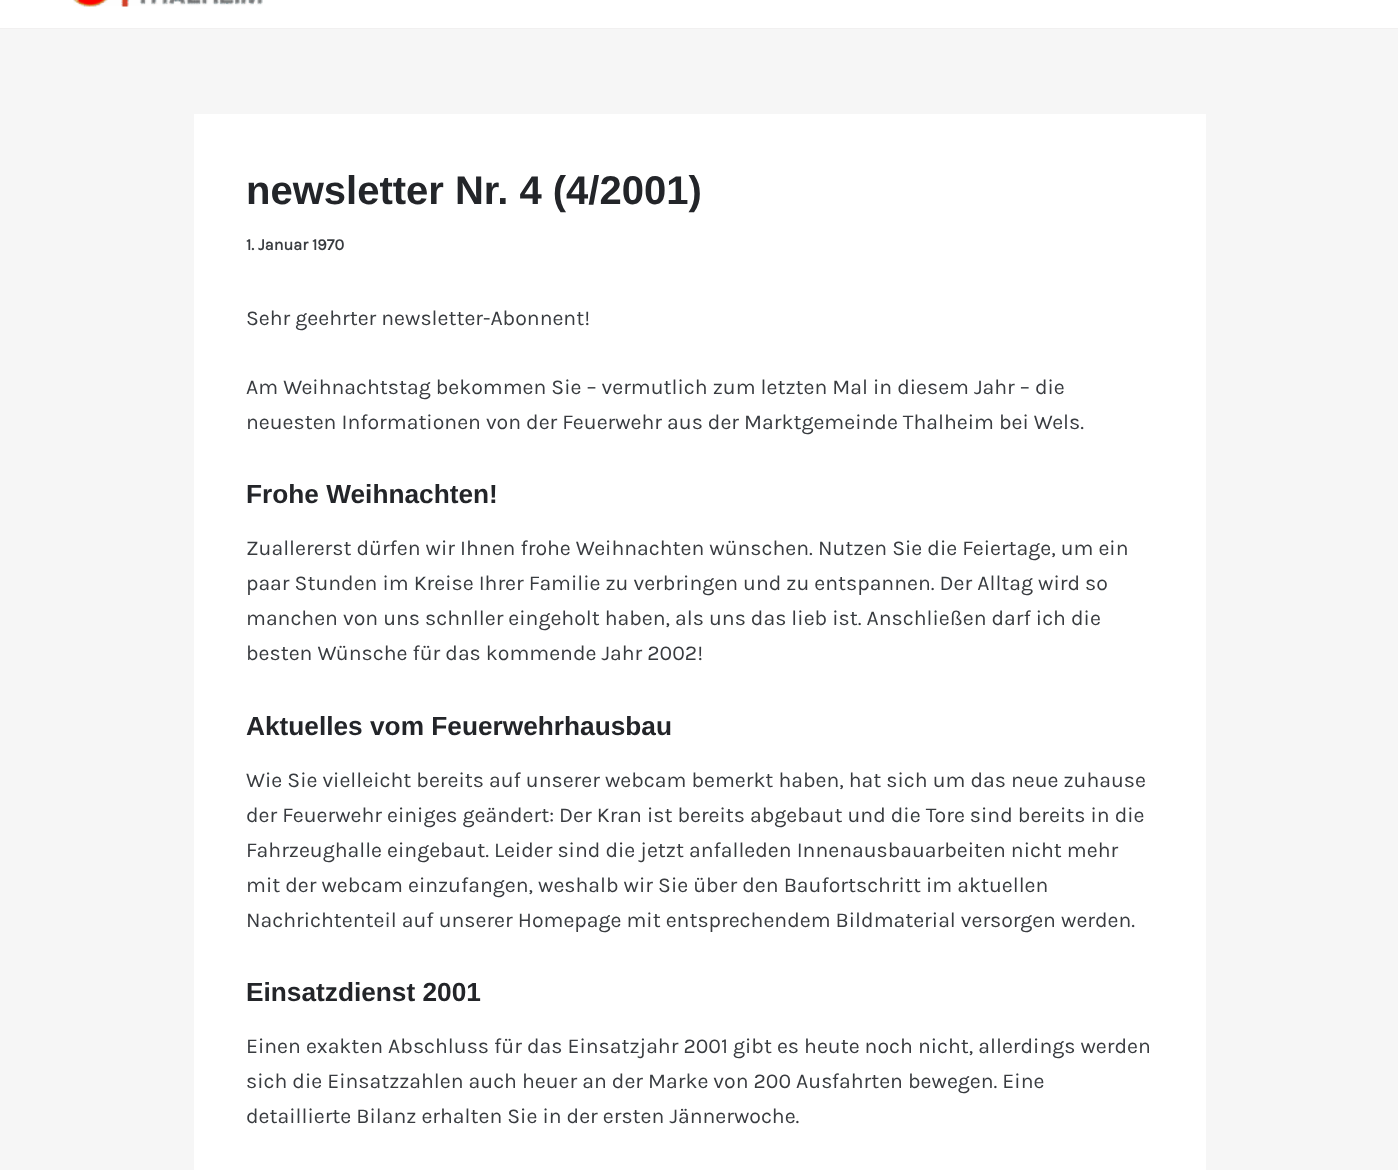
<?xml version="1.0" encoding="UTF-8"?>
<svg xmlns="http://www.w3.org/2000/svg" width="1398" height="1170">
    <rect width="100%" height="100%" fill="#F6F6F6"/>
    <rect x="0" y="0" width="1398" height="28" fill="#FFFFFF"/>
    <rect x="0" y="28" width="1398" height="1" fill="#F1F0F0"/>
    <image x="73" y="0" width="190" height="7" href="img_01.png"/>
    <rect x="194" y="114" width="1012" height="1056" fill="#FFFFFF"/>
    <text x="246" y="204" font-family="Liberation Sans" font-size="40" font-weight="700" fill="#232529">newsletter Nr. 4 (4/2001)</text>
    <text x="246" y="250" font-family="Karla" font-size="16.25" font-weight="700" fill="#393C40">1. Januar 1970</text>
    <text x="246" y="325" font-family="Karla" font-size="21.25" fill="#393C40">Sehr geehrter newsletter-Abonnent!</text>
    <text font-family="Karla" font-size="21.25" fill="#393C40">
        <tspan x="246" y="394">Am Weihnachtstag bekommen Sie – vermutlich zum letzten Mal in diesem Jahr – die</tspan>
        <tspan x="246" y="429">neuesten Informationen von der Feuerwehr aus der Marktgemeinde Thalheim bei Wels.</tspan>
    </text>
    <text x="246" y="503" font-family="Liberation Sans" font-size="26.25" font-weight="700" fill="#232529">Frohe Weihnachten!</text>
    <text font-family="Karla" font-size="21.25" fill="#393C40">
        <tspan x="246" y="555">Zuallererst dürfen wir Ihnen frohe Weihnachten wünschen. Nutzen Sie die Feiertage, um ein</tspan>
        <tspan x="246" y="590">paar Stunden im Kreise Ihrer Familie zu verbringen und zu entspannen. Der Alltag wird so</tspan>
        <tspan x="246" y="625">manchen von uns schnller eingeholt haben, als uns das lieb ist. Anschließen darf ich die</tspan>
        <tspan x="246" y="660">besten Wünsche für das kommende Jahr 2002!</tspan>
    </text>
    <text x="246" y="735" font-family="Liberation Sans" font-size="26.25" font-weight="700" fill="#232529">Aktuelles vom Feuerwehrhausbau</text>
    <text font-family="Karla" font-size="21.25" fill="#393C40">
        <tspan x="246" y="787">Wie Sie vielleicht bereits auf unserer webcam bemerkt haben, hat sich um das neue zuhause</tspan>
        <tspan x="246" y="822">der Feuerwehr einiges geändert: Der Kran ist bereits abgebaut und die Tore sind bereits in die</tspan>
        <tspan x="246" y="857">Fahrzeughalle eingebaut. Leider sind die jetzt anfalleden Innenausbauarbeiten nicht mehr</tspan>
        <tspan x="246" y="892">mit der webcam einzufangen, weshalb wir Sie über den Baufortschritt im aktuellen</tspan>
        <tspan x="246" y="927">Nachrichtenteil auf unserer Homepage mit entsprechendem Bildmaterial versorgen werden.</tspan>
    </text>
    <text x="246" y="1001" font-family="Liberation Sans" font-size="26.25" font-weight="700" fill="#232529">Einsatzdienst 2001</text>
    <text font-family="Karla" font-size="21.25" fill="#393C40">
        <tspan x="246" y="1053">Einen exakten Abschluss für das Einsatzjahr 2001 gibt es heute noch nicht, allerdings werden</tspan>
        <tspan x="246" y="1088">sich die Einsatzzahlen auch heuer an der Marke von 200 Ausfahrten bewegen. Eine</tspan>
        <tspan x="246" y="1123">detaillierte Bilanz erhalten Sie in der ersten Jännerwoche.</tspan>
    </text>
</svg>
